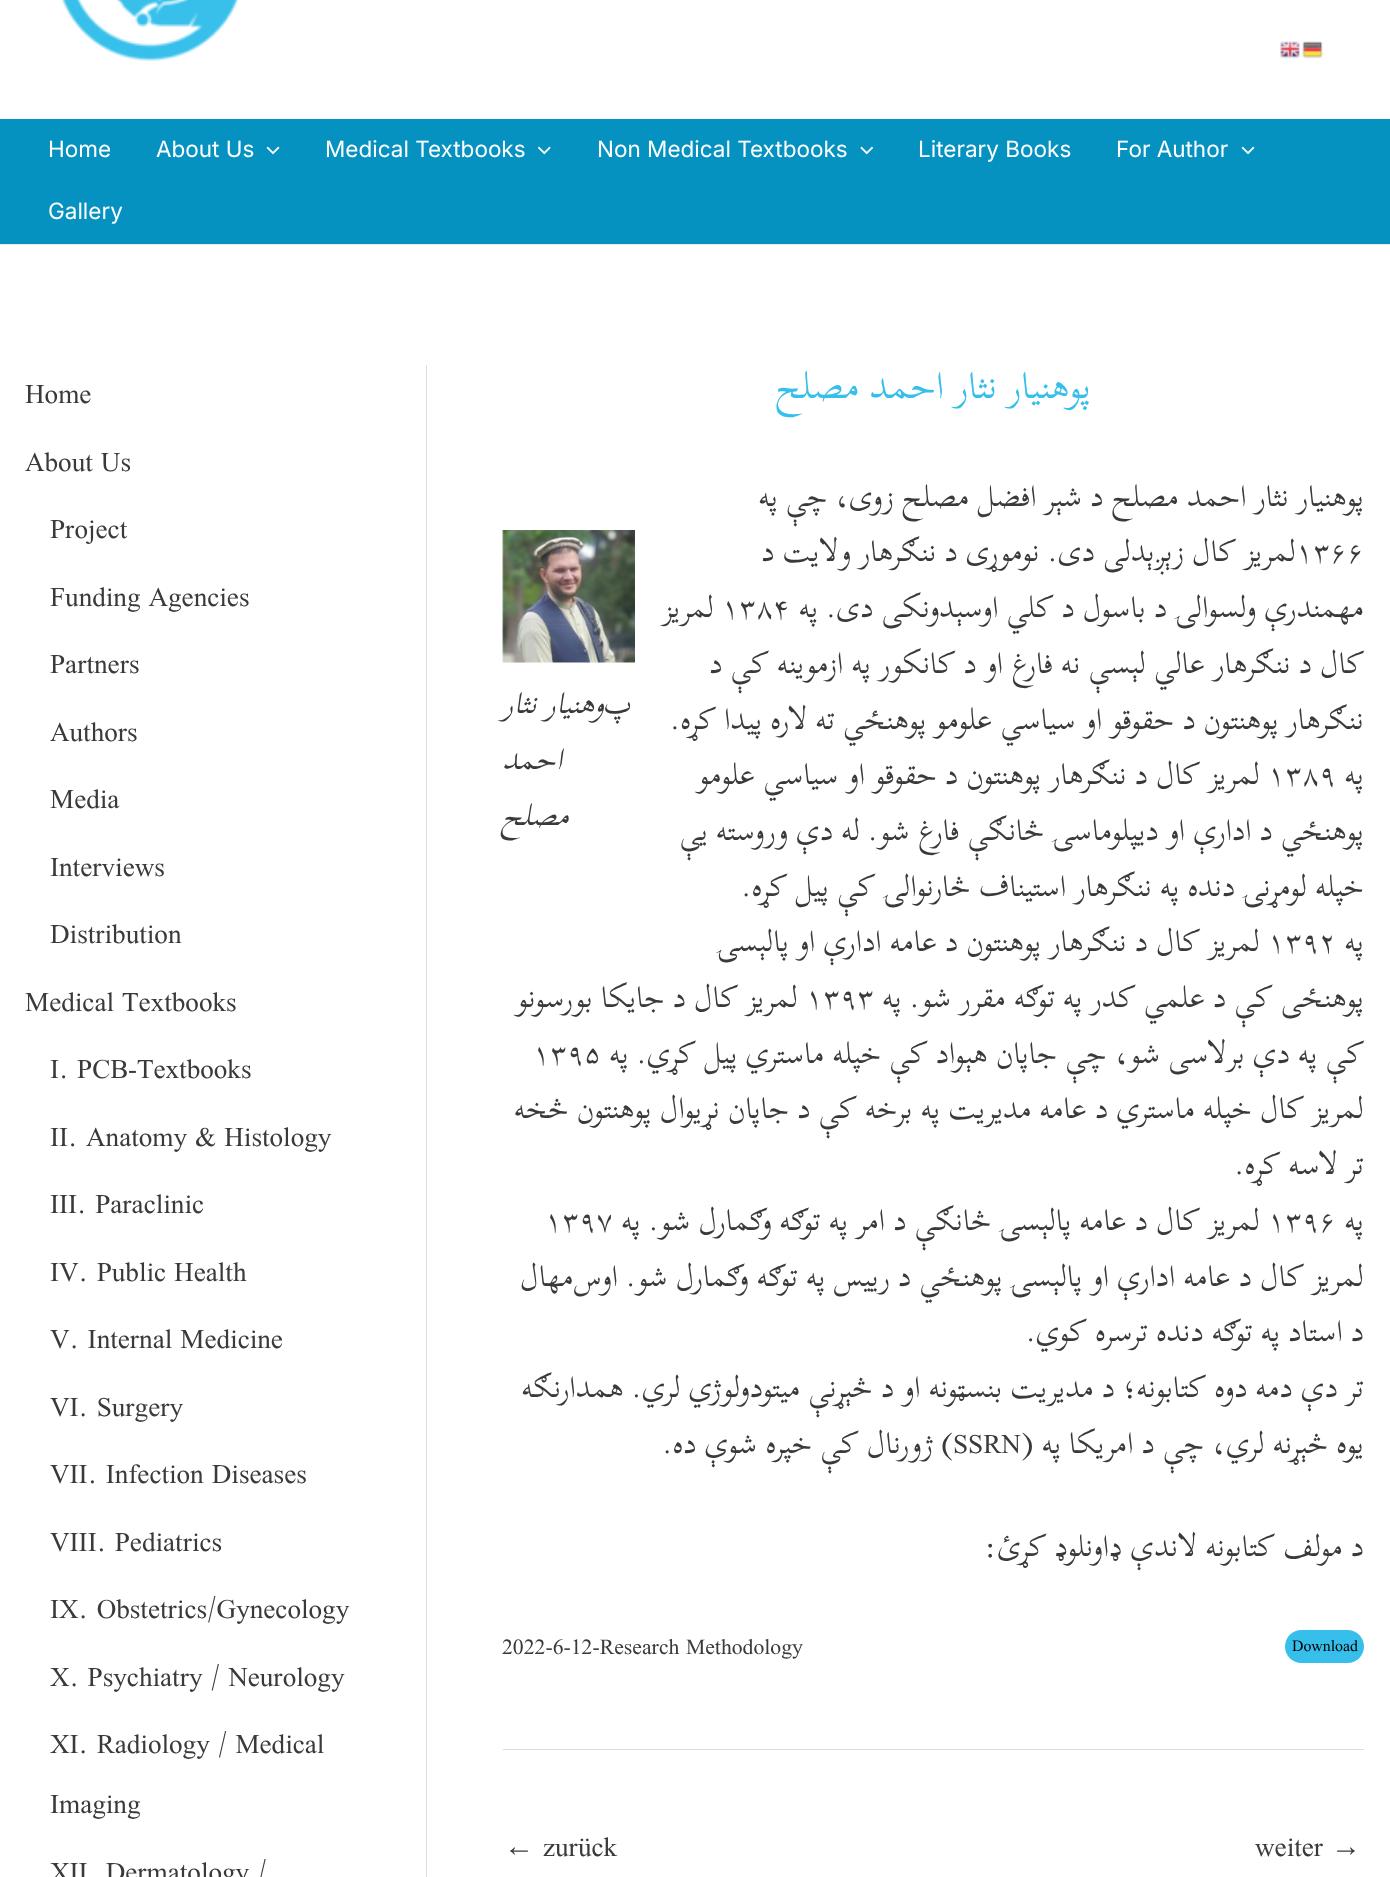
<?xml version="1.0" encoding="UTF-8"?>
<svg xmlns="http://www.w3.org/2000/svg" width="1390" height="1877">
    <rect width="100%" height="100%" fill="#FFFFFF"/>
    <image x="1302" y="41" width="21" height="18" href="img_01.png"/>
    <image x="1280" y="41" width="20" height="18" href="img_02.png"/>
    <image x="61" y="0" width="178" height="61" href="img_03.png"/>
    <rect x="0" y="119" width="1390" height="125" fill="#0692C0"/>
    <rect x="0" y="244" width="1390" height="1" fill="#EAEAEA"/>
    <image x="1241" y="146" width="14" height="9" href="img_04.png"/>
    <text x="1116" y="157" font-family="Inter" font-size="22.5" fill="#FFFFFF">For Author</text>
    <text x="918" y="157" font-family="Inter" font-size="22.5" fill="#FFFFFF">Literary Books</text>
    <image x="860" y="146" width="14" height="9" href="img_05.png"/>
    <text x="597" y="157" font-family="Inter" font-size="22.5" fill="#FFFFFF">Non Medical Textbooks</text>
    <image x="538" y="146" width="13" height="9" href="img_06.png"/>
    <text x="325" y="157" font-family="Inter" font-size="22.5" fill="#FFFFFF">Medical Textbooks</text>
    <image x="266" y="146" width="14" height="9" href="img_04.png"/>
    <text x="156" y="157" font-family="Inter" font-size="22.5" fill="#FFFFFF">About Us</text>
    <text x="48" y="157" font-family="Inter" font-size="22.5" fill="#FFFFFF">Home</text>
    <text x="48" y="219" font-family="Inter" font-size="22.5" fill="#FFFFFF">Gallery</text>
    <text x="1091" y="398" font-family="Scheherazade New" font-size="37.5" direction="rtl" fill="#36BFEB">پوهنيار نثار احمد مصلح</text>
    <text x="1364" y="506" font-family="Scheherazade New" font-size="30" direction="rtl" fill="#3A3A3A">پوهنيار نثار احمد مصلح د شېر افضل مصلح زوی، چې په</text>
    <text x="1296" y="561" font-family="Scheherazade New" font-size="30" fill="#3A3A3A">۱۳۶۶</text>
    <text x="1296" y="561" font-family="Scheherazade New" font-size="30" direction="rtl" fill="#3A3A3A">لمریز کال زېږېدلی دی. نوموړی د ننګرهار ولايت د</text>
    <text x="1364" y="617" font-family="Scheherazade New" font-size="30" direction="rtl" fill="#3A3A3A">مهمندرې ولسوالۍ د باسول د کلي اوسېدونکی دی. په</text>
    <text x="722" y="617" font-family="Scheherazade New" font-size="30" fill="#3A3A3A">۱۳۸۴</text>
    <text x="714" y="617" font-family="Scheherazade New" font-size="30" direction="rtl" fill="#3A3A3A">لمریز</text>
    <text font-family="Scheherazade New" font-size="30" direction="rtl" fill="#3A3A3A">
        <tspan x="1364" y="673">کال د ننګرهار عالي لېسې نه فارغ او د کانکور په ازموينه کې د</tspan>
        <tspan x="1364" y="729">ننګرهار پوهنتون د حقوقو او سياسي علومو پوهنځي ته لاره پیدا کړه.</tspan>
        <tspan x="1364" y="784">په</tspan>
    </text>
    <text x="1268" y="784" font-family="Scheherazade New" font-size="30" fill="#3A3A3A">۱۳۸۹</text>
    <text x="1260" y="784" font-family="Scheherazade New" font-size="30" direction="rtl" fill="#3A3A3A">لمریز کال د ننګرهار پوهنتون د حقوقو او سياسي علومو</text>
    <text font-family="Scheherazade New" font-size="30" direction="rtl" fill="#3A3A3A">
        <tspan x="1364" y="840">پوهنځي د ادارې او ديپلوماسۍ څانګې فارغ شو. له دې وروسته يې</tspan>
        <tspan x="1364" y="896">خپله لومړنۍ دنده په ننګرهار استیناف څارنوالۍ کې پیل کړه.</tspan>
        <tspan x="1364" y="951">په</tspan>
    </text>
    <text x="1268" y="951" font-family="Scheherazade New" font-size="30" fill="#3A3A3A">۱۳۹۲</text>
    <text x="1260" y="951" font-family="Scheherazade New" font-size="30" direction="rtl" fill="#3A3A3A">لمریز کال د ننګرهار پوهنتون د عامه ادارې او پالېسۍ</text>
    <text x="1364" y="1007" font-family="Scheherazade New" font-size="30" direction="rtl" fill="#3A3A3A">پوهنځی کې د علمي کدر په توګه مقرر شو. په</text>
    <text x="806" y="1007" font-family="Scheherazade New" font-size="30" fill="#3A3A3A">۱۳۹۳</text>
    <text x="798" y="1007" font-family="Scheherazade New" font-size="30" direction="rtl" fill="#3A3A3A">لمریز کال د جايکا بورسونو</text>
    <text x="1364" y="1063" font-family="Scheherazade New" font-size="30" direction="rtl" fill="#3A3A3A">کې په دې برلاسی شو، چې جاپان هېواد کې خپله ماستري پیل کړي. په</text>
    <text x="533" y="1063" font-family="Scheherazade New" font-size="30" fill="#3A3A3A">۱۳۹۵</text>
    <text font-family="Scheherazade New" font-size="30" direction="rtl" fill="#3A3A3A">
        <tspan x="1364" y="1118">لمریز کال خپله ماستري د عامه مديريت په برخه کې د جاپان نړيوال پوهنتون څخه</tspan>
        <tspan x="1364" y="1174">تر لاسه کړه.</tspan>
        <tspan x="1364" y="1230">په</tspan>
    </text>
    <text x="1268" y="1230" font-family="Scheherazade New" font-size="30" fill="#3A3A3A">۱۳۹۶</text>
    <text x="1260" y="1230" font-family="Scheherazade New" font-size="30" direction="rtl" fill="#3A3A3A">لمریز کال د عامه پالېسۍ څانګې د امر په توګه وګمارل شو. په</text>
    <text x="545" y="1230" font-family="Scheherazade New" font-size="30" fill="#3A3A3A">۱۳۹۷</text>
    <text font-family="Scheherazade New" font-size="30" direction="rtl" fill="#3A3A3A">
        <tspan x="1364" y="1286">لمریز کال د عامه ادارې او پالېسۍ پوهنځي د ریيس په توګه وګمارل شو. اوس‌مهال</tspan>
        <tspan x="1364" y="1341">د استاد په توګه دنده ترسره کوي.</tspan>
        <tspan x="1364" y="1397">تر دې دمه دوه کتابونه؛ د مديريت بنسټونه او د څېړنې ميتودولوژي لري. همدارنګه</tspan>
        <tspan x="1364" y="1453">يوه څېړنه لري، چې د امريکا په (</tspan>
    </text>
    <text x="953" y="1453" font-family="Scheherazade New" font-size="30" fill="#3A3A3A">SSRN</text>
    <text x="953" y="1453" font-family="Scheherazade New" font-size="30" direction="rtl" fill="#3A3A3A">) ژورنال کې خپره شوې ده.</text>
    <image x="502" y="530" width="133" height="133" href="img_07.png"/>
    <text x="632" y="713" font-family="Scheherazade New" font-size="30" direction="rtl" fill="#3A3A3A">پ</text>
    <text x="604" y="713" font-family="Scheherazade New" font-size="30" font-style="italic" direction="rtl" fill="#3A3A3A">وهنيار نثار</text>
    <text x="562" y="769" font-family="Scheherazade New" font-size="30" font-style="italic" direction="rtl" fill="#3A3A3A">احمد</text>
    <text x="569" y="825" font-family="Scheherazade New" font-size="30" font-style="italic" direction="rtl" fill="#3A3A3A">مصلح</text>
    <text x="1364" y="1556" font-family="Scheherazade New" font-size="30" direction="rtl" fill="#3A3A3A">د مولف کتابونه لاندې ډاونلوډ کړئ:</text>
    <rect x="1285" y="1630" width="79" height="33" rx="16.5" fill="#36BFEB"/>
    <text x="1292" y="1651" font-family="Scheherazade New" font-size="17.5" fill="#000000">Download</text>
    <text x="502" y="1654" font-family="Scheherazade New" font-size="24" fill="#3A3A3A">2022-6-12-Research Methodology</text>
    <rect x="503" y="1749" width="861" height="1" fill="#DDDDDD"/>
    <text x="1331" y="1856" font-family="Liberation Serif" font-size="30" fill="#3A3A3A">→</text>
    <text x="1255" y="1856" font-family="Scheherazade New" font-size="30" fill="#3A3A3A">weiter</text>
    <text x="543" y="1856" font-family="Scheherazade New" font-size="30" fill="#3A3A3A">zurück</text>
    <text x="504" y="1856" font-family="Liberation Serif" font-size="30" fill="#3A3A3A">←</text>
    <rect x="426" y="365" width="1" height="1512" fill="#DDDDDD"/>
    <text x="25" y="403" font-family="Scheherazade New" font-size="30" fill="#3A3A3A">Home</text>
    <text x="25" y="471" font-family="Scheherazade New" font-size="30" fill="#3A3A3A">About Us</text>
    <text x="50" y="538" font-family="Scheherazade New" font-size="30" fill="#3A3A3A">Project</text>
    <text x="50" y="606" font-family="Scheherazade New" font-size="30" fill="#3A3A3A">Funding Agencies</text>
    <text x="50" y="673" font-family="Scheherazade New" font-size="30" fill="#3A3A3A">Partners</text>
    <text x="50" y="741" font-family="Scheherazade New" font-size="30" fill="#3A3A3A">Authors</text>
    <text x="50" y="808" font-family="Scheherazade New" font-size="30" fill="#3A3A3A">Media</text>
    <text x="50" y="876" font-family="Scheherazade New" font-size="30" fill="#3A3A3A">Interviews</text>
    <text x="50" y="943" font-family="Scheherazade New" font-size="30" fill="#3A3A3A">Distribution</text>
    <text x="25" y="1011" font-family="Scheherazade New" font-size="30" fill="#3A3A3A">Medical Textbooks</text>
    <text x="50" y="1078" font-family="Scheherazade New" font-size="30" fill="#3A3A3A">I. PCB-Textbooks</text>
    <text x="50" y="1146" font-family="Scheherazade New" font-size="30" fill="#3A3A3A">II. Anatomy &amp; Histology</text>
    <text x="50" y="1213" font-family="Scheherazade New" font-size="30" fill="#3A3A3A">III. Paraclinic</text>
    <text x="50" y="1281" font-family="Scheherazade New" font-size="30" fill="#3A3A3A">IV. Public Health</text>
    <text x="50" y="1348" font-family="Scheherazade New" font-size="30" fill="#3A3A3A">V. Internal Medicine</text>
    <text x="50" y="1416" font-family="Scheherazade New" font-size="30" fill="#3A3A3A">VI. Surgery</text>
    <text x="50" y="1483" font-family="Scheherazade New" font-size="30" fill="#3A3A3A">VII. Infection Diseases</text>
    <text x="50" y="1551" font-family="Scheherazade New" font-size="30" fill="#3A3A3A">VIII. Pediatrics</text>
    <text x="50" y="1618" font-family="Scheherazade New" font-size="30" fill="#3A3A3A">IX. Obstetrics/Gynecology</text>
    <text x="50" y="1686" font-family="Scheherazade New" font-size="30" fill="#3A3A3A">X. Psychiatry / Neurology</text>
    <text x="50" y="1753" font-family="Scheherazade New" font-size="30" fill="#3A3A3A">XI. Radiology / Medical</text>
    <text x="50" y="1813" font-family="Scheherazade New" font-size="30" fill="#3A3A3A">Imaging</text>
    <text x="50" y="1881" font-family="Scheherazade New" font-size="30" fill="#3A3A3A">XII. Dermatology /</text>
</svg>
